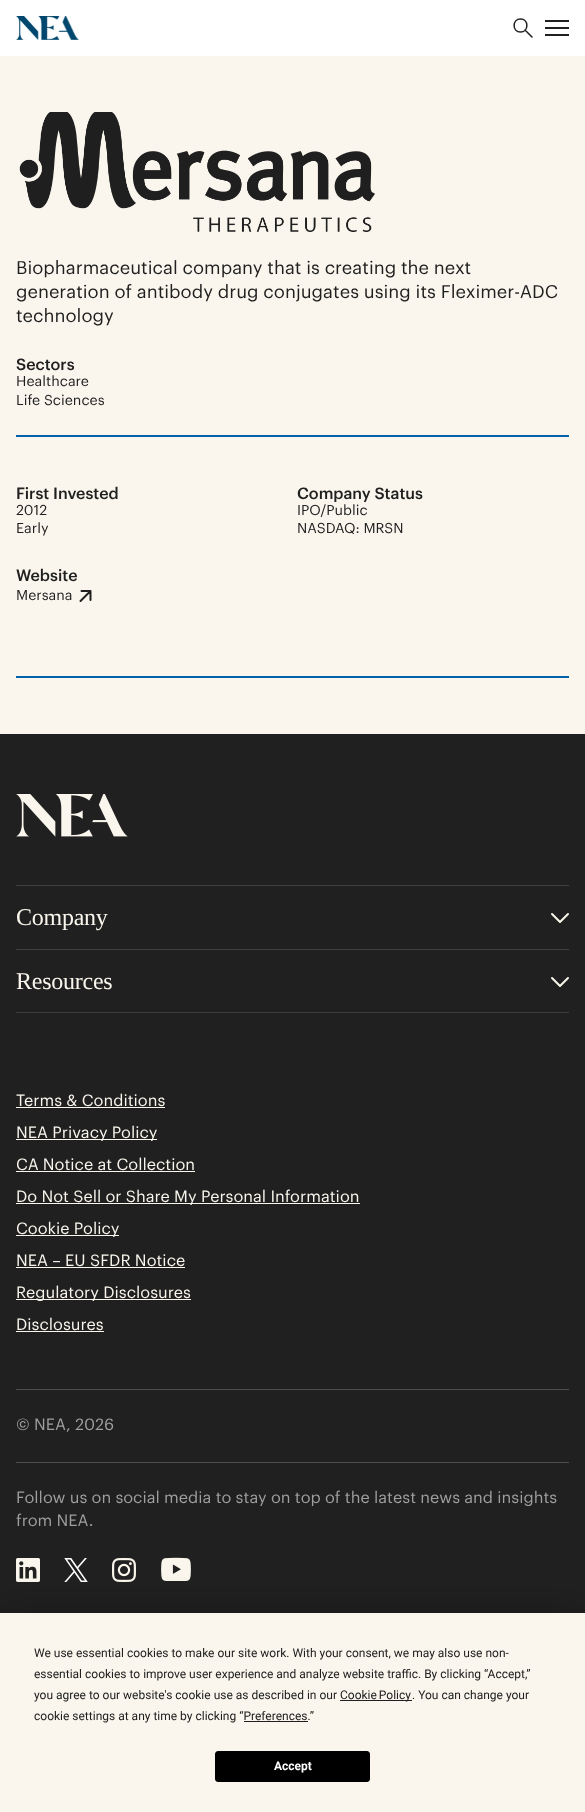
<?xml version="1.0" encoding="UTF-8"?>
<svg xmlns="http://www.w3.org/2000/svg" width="585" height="1812">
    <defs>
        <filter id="blur1" x="-50%" y="-200%" width="200%" height="500%"><feGaussianBlur stdDeviation="17.5"/></filter>
    </defs>
    <rect width="100%" height="100%" fill="#FAF6ED"/>
    <rect x="0" y="0" width="585" height="56" fill="#FFFFFF"/>
    <image x="16" y="16" width="63" height="24" href="img_01.png"/>
    <path d="M 520.5 32 C 529 32 529 19 520.5 19 C 512 19 512 32 520.5 32 M 532 37 L 525 30" fill="none" stroke="#202020" stroke-width="1.5" stroke-linecap="round" stroke-linejoin="round"/>
    <rect x="545" y="20" width="24" height="2" fill="#202020"/>
    <rect x="545" y="27" width="24" height="2" fill="#202020"/>
    <rect x="545" y="34" width="24" height="2" fill="#202020"/>
    <image x="19" y="112" width="356" height="120" href="img_02.png"/>
    <text font-family="Graphik" font-size="18" fill="#202020">
        <tspan x="16" y="274">Biopharmaceutical company that is creating the next</tspan>
        <tspan x="16" y="298">generation of antibody drug conjugates using its Fleximer-ADC</tspan>
        <tspan x="16" y="322">technology</tspan>
    </text>
    <text x="16" y="370" font-family="Graphik" font-size="16" font-weight="500" fill="#202020">Sectors</text>
    <text font-family="Graphik" font-size="14" fill="#202020">
        <tspan x="16" y="386">Healthcare</tspan>
        <tspan x="16" y="405">Life Sciences</tspan>
    </text>
    <rect x="16" y="435" width="553" height="2" fill="#0062A8"/>
    <text x="16" y="499" font-family="Graphik" font-size="16" font-weight="500" fill="#202020">First Invested</text>
    <text font-family="Graphik" font-size="14" fill="#202020">
        <tspan x="16" y="515">2012</tspan>
        <tspan x="16" y="533">Early</tspan>
    </text>
    <text x="297" y="499" font-family="Graphik" font-size="16" font-weight="500" fill="#202020">Company Status</text>
    <text font-family="Graphik" font-size="14" fill="#202020">
        <tspan x="297" y="515">IPO/Public</tspan>
        <tspan x="297" y="533">NASDAQ: MRSN</tspan>
    </text>
    <text x="16" y="581" font-family="Graphik" font-size="16" font-weight="500" fill="#202020">Website</text>
    <text x="16" y="600" font-family="Graphik" font-size="14" fill="#202020">Mersana</text>
    <path d="M 80.5 601 L 90.5 591 M 90.5 591 H 81.5 M 90.5 591 V 600" fill="none" stroke="#202020" stroke-width="2" stroke-linecap="round" stroke-linejoin="round"/>
    <rect x="16" y="676" width="553" height="2" fill="#0062A8"/>
    <rect x="0" y="734" width="585" height="879" fill="#202020"/>
    <rect x="16" y="1012" width="553" height="1" fill="#3C3C3C"/>
    <image x="16" y="794" width="112" height="43" href="img_03.png"/>
    <rect x="16" y="885" width="553" height="1" fill="#404040"/>
    <text x="16" y="925" font-family="Liberation Serif" font-size="24" letter-spacing="-0.25" fill="#FAF6ED">Company</text>
    <path d="M 568 914 L 560 922 L 552 914" fill="none" stroke="#FAF6ED" stroke-width="2" stroke-linecap="round" stroke-linejoin="round"/>
    <rect x="16" y="949" width="553" height="1" fill="#404040"/>
    <text x="16" y="989" font-family="Liberation Serif" font-size="24" letter-spacing="-0.25" fill="#FAF6ED">Resources</text>
    <path d="M 568 978 L 560 986 L 552 978" fill="none" stroke="#FAF6ED" stroke-width="2" stroke-linecap="round" stroke-linejoin="round"/>
    <text x="16" y="1106" font-family="Graphik" font-size="16" fill="#FAF6ED">Terms &amp; Conditions</text>
    <rect x="16" y="1107" width="149" height="1" fill="#FAF6ED"/>
    <rect x="16" y="1139" width="141" height="1" fill="#FAF6ED"/>
    <text x="16" y="1138" font-family="Graphik" font-size="16" fill="#FAF6ED">NEA Privacy Policy</text>
    <text x="16" y="1170" font-family="Graphik" font-size="16" fill="#FAF6ED">CA Notice at Collection</text>
    <rect x="16" y="1171" width="179" height="1" fill="#FAF6ED"/>
    <rect x="16" y="1203" width="344" height="1" fill="#FAF6ED"/>
    <text x="16" y="1202" font-family="Graphik" font-size="16" fill="#FAF6ED">Do Not Sell or Share My Personal Information</text>
    <rect x="16" y="1235" width="103" height="1" fill="#FAF6ED"/>
    <text x="16" y="1234" font-family="Graphik" font-size="16" fill="#FAF6ED">Cookie Policy</text>
    <text x="16" y="1266" font-family="Graphik" font-size="16" fill="#FAF6ED">NEA – EU SFDR Notice</text>
    <rect x="16" y="1267" width="169" height="1" fill="#FAF6ED"/>
    <rect x="16" y="1299" width="175" height="1" fill="#FAF6ED"/>
    <text x="16" y="1298" font-family="Graphik" font-size="16" fill="#FAF6ED">Regulatory Disclosures</text>
    <text x="16" y="1330" font-family="Graphik" font-size="16" fill="#FAF6ED">Disclosures</text>
    <rect x="16" y="1331" width="88" height="1" fill="#FAF6ED"/>
    <rect x="16" y="1389" width="553" height="1" fill="#4D4D4D"/>
    <text x="16" y="1430" font-family="Graphik" font-size="16" fill="#9F9F9F">© NEA, 2026</text>
    <rect x="16" y="1462" width="553" height="1" fill="#4D4D4D"/>
    <text font-family="Graphik" font-size="16" fill="#9F9F9F">
        <tspan x="16" y="1503">Follow us on social media to stay on top of the latest news and insights</tspan>
        <tspan x="16" y="1526">from NEA.</tspan>
    </text>
    <image x="16" y="1558" width="24" height="24" href="img_04.png"/>
    <image x="64" y="1558" width="24" height="24" href="img_05.png"/>
    <image x="112" y="1558" width="24" height="24" href="img_06.png"/>
    <image x="161" y="1557" width="30" height="24" href="img_07.png"/>
    <rect x="0" y="1613" width="585" height="199" fill="#000000" fill-opacity="0.25" filter="url(#blur1)"/>
    <rect x="0" y="1613" width="585" height="199" fill="#FAF6ED"/>
    <text font-family="Roboto" font-size="12" fill="#202020">
        <tspan x="34" y="1657">We use essential cookies to make our site work. With your consent, we may also use non-</tspan>
        <tspan x="34" y="1678">essential cookies to improve user experience and analyze website traffic. By clicking “Accept,”</tspan>
        <tspan x="34" y="1699">you agree to our website's cookie use as described in our</tspan>
    </text>
    <rect x="340" y="1700" width="72" height="1" fill="#202020"/>
    <text x="340" y="1699" word-spacing="-1" font-family="Roboto" font-size="12" fill="#202020">Cookie Policy</text>
    <text x="412" y="1699" font-family="Roboto" font-size="12" fill="#202020">. You can change your</text>
    <text x="34" y="1720" font-family="Roboto" font-size="12" fill="#202020">cookie settings at any time by clicking “Preferences.”</text>
    <rect x="244" y="1721" width="64" height="1" fill="#202020"/>
    <rect x="215.5" y="1751.5" width="154" height="30" rx="2.5" fill="#000000" stroke="#000000"/>
    <text x="274" y="1770" font-family="Roboto" font-size="12" font-weight="700" fill="#FFFFFF">Accept</text>
</svg>
